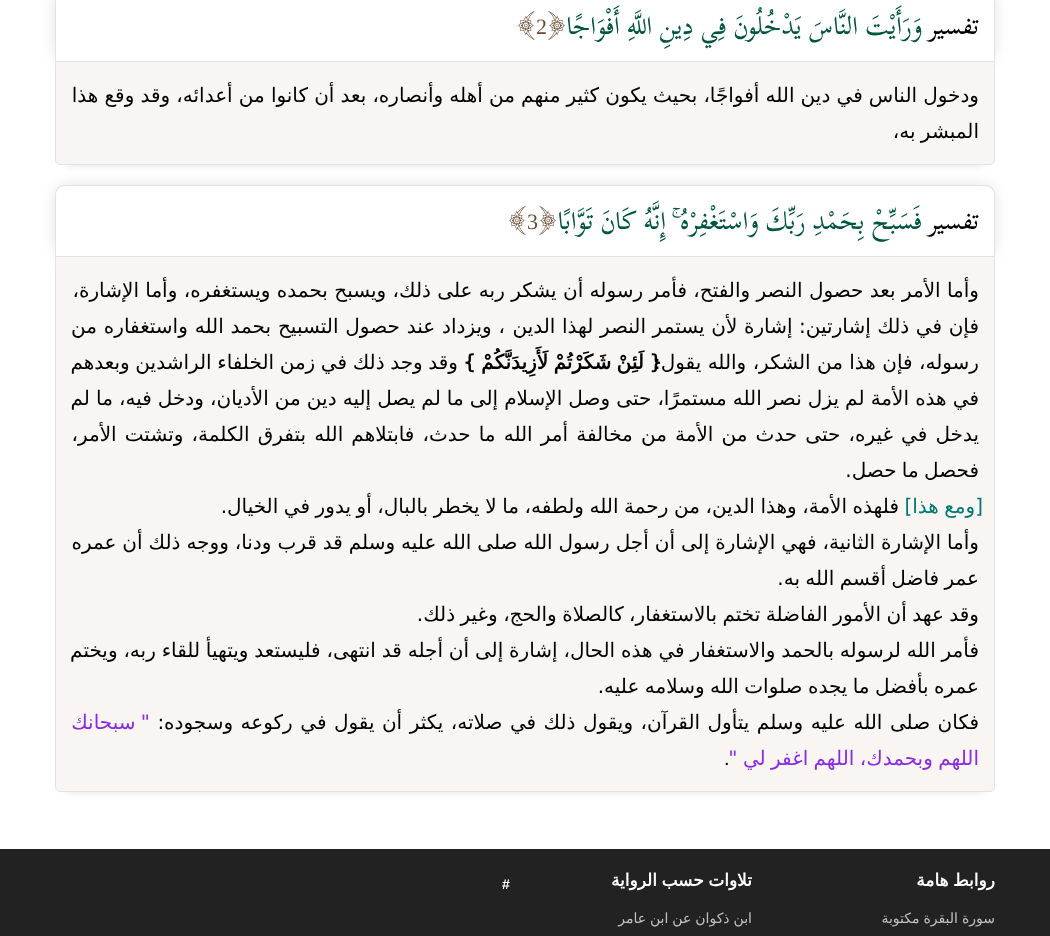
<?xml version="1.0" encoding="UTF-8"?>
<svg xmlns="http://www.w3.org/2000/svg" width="1050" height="936">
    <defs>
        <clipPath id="clip1"><path d="M 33 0 H 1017 V 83 H 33 Z M 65 -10 H 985 C 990.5 -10 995 -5.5 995 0 V 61 H 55 V 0 C 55 -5.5 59.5 -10 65 -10 Z" clip-rule="evenodd"/></clipPath>
        <filter id="blur1" x="-50%" y="-200%" width="200%" height="500%"><feGaussianBlur stdDeviation="7.5"/></filter>
        <filter id="blur2" x="-50%" y="-200%" width="200%" height="500%"><feGaussianBlur stdDeviation="5"/></filter>
        <clipPath id="clip2"><path d="M 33 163 H 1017 V 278 H 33 Z M 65 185 H 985 C 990.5 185 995 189.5 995 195 V 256 H 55 V 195 C 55 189.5 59.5 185 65 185 Z" clip-rule="evenodd"/></clipPath>
    </defs>
    <rect width="100%" height="100%" fill="#FFFFFF"/>
    <g clip-path="url(#clip1)">
        <rect x="57" y="-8" width="936" height="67" rx="8" fill="#000000" fill-opacity="0.15" filter="url(#blur1)"/>
    </g>
    <path d="M 65 -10 H 985 C 991 -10 995 -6 995 0 V 61 H 55 V 0 C 55 -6 59 -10 65 -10 Z M 65 -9 H 985 C 990 -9 994 -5 994 0 V 61 H 56 V 0 C 56 -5 60 -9 65 -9 Z" fill="#E3E3E3" fill-rule="evenodd"/>
    <text x="979" y="34" font-family="Scheherazade New" font-size="25" font-weight="500" direction="rtl" fill="#000000">تفسير</text>
    <text x="922" y="34" word-spacing="0.75" font-family="Scheherazade New" font-size="25" font-weight="500" direction="rtl" fill="#005541">وَرَأَيْتَ النَّاسَ يَدْخُلُونَ فِي دِينِ اللَّهِ أَفْوَاجًا</text>
    <text x="547" y="31" font-family="Scheherazade New" font-size="32" font-weight="500" fill="#684B30">﴿</text>
    <text x="536" y="34" font-family="Liberation Serif" font-size="22" fill="#684B30">2</text>
    <text x="517" y="31" font-family="Scheherazade New" font-size="32" font-weight="500" fill="#684B30">﴾</text>
    <rect x="67" y="84" width="916" height="80" fill="#000000" fill-opacity="0.15" filter="url(#blur2)"/>
    <path d="M 55.5 61.5 H 994.5 V 160 C 994.5 162.5 992.5 164.5 990 164.5 H 60 C 57.5 164.5 55.5 162.5 55.5 160 Z" fill="#F9F5F3" stroke="#E3E3E3"/>
    <text font-family="DejaVu Sans" font-size="20" direction="rtl" fill="#000000">
        <tspan x="979" y="102" word-spacing="-0.2">ودخول الناس في دين الله أفواجًا، بحيث يكون كثير منهم من أهله وأنصاره، بعد أن كانوا من أعدائه، وقد وقع هذا</tspan>
        <tspan x="979" y="138" word-spacing="-1">المبشر به،</tspan>
    </text>
    <g clip-path="url(#clip2)">
        <rect x="57" y="187" width="936" height="67" rx="8" fill="#000000" fill-opacity="0.15" filter="url(#blur1)"/>
    </g>
    <path d="M 65 185 H 985 C 991 185 995 189 995 195 V 256 H 55 V 195 C 55 189 59 185 65 185 Z M 65 186 H 985 C 990 186 994 190 994 195 V 256 H 56 V 195 C 56 190 60 186 65 186 Z" fill="#E3E3E3" fill-rule="evenodd"/>
    <text x="979" y="229" font-family="Scheherazade New" font-size="25" font-weight="500" direction="rtl" fill="#000000">تفسير</text>
    <text x="922" y="229" word-spacing="0.5" font-family="Scheherazade New" font-size="25" font-weight="500" direction="rtl" fill="#005541">فَسَبِّحْ بِحَمْدِ رَبِّكَ وَاسْتَغْفِرْهُ ۚ إِنَّهُ كَانَ تَوَّابًا</text>
    <text x="538" y="226" font-family="Scheherazade New" font-size="32" font-weight="500" fill="#684B30">﴿</text>
    <text x="527" y="229" font-family="Liberation Serif" font-size="22" fill="#684B30">3</text>
    <text x="508" y="226" font-family="Scheherazade New" font-size="32" font-weight="500" fill="#684B30">﴾</text>
    <rect x="67" y="279" width="916" height="512" fill="#000000" fill-opacity="0.15" filter="url(#blur2)"/>
    <path d="M 55.5 256.5 H 994.5 V 787 C 994.5 789.5 992.5 791.5 990 791.5 H 60 C 57.5 791.5 55.5 789.5 55.5 787 Z" fill="#F9F5F3" stroke="#E3E3E3"/>
    <text font-family="DejaVu Sans" font-size="20" direction="rtl" fill="#000000">
        <tspan x="979" y="297">وأما الأمر بعد حصول النصر والفتح، فأمر رسوله أن يشكر ربه على ذلك، ويسبح بحمده ويستغفره، وأما الإشارة،</tspan>
        <tspan x="979" y="333" word-spacing="0.25">فإن في ذلك إشارتين: إشارة لأن يستمر النصر لهذا الدين</tspan>
    </text>
    <text x="505" y="333" word-spacing="0.5" font-family="DejaVu Sans" font-size="20" direction="rtl" fill="#000000">، ويزداد عند حصول التسبيح بحمد الله واستغفاره من</text>
    <text x="979" y="369" font-family="DejaVu Sans" font-size="20" direction="rtl" fill="#000000">رسوله، فإن هذا من الشكر، والله يقول:</text>
    <text x="662" y="369" word-spacing="-1" font-family="DejaVu Sans" font-size="20" font-weight="700" direction="rtl" fill="#000000">{ لَئِنْ شَكَرْتُمْ لَأَزِيدَنَّكُمْ }</text>
    <text x="458" y="369" word-spacing="-0.75" font-family="DejaVu Sans" font-size="20" direction="rtl" fill="#000000">وقد وجد ذلك في زمن الخلفاء الراشدين وبعدهم</text>
    <text font-family="DejaVu Sans" font-size="20" direction="rtl" fill="#000000">
        <tspan x="979" y="405" word-spacing="-0.25">في هذه الأمة لم يزل نصر الله مستمرًا، حتى وصل الإسلام إلى ما لم يصل إليه دين من الأديان، ودخل فيه، ما لم</tspan>
        <tspan x="979" y="441" word-spacing="1.75">يدخل في غيره، حتى حدث من الأمة من مخالفة أمر الله ما حدث، فابتلاهم الله</tspan>
    </text>
    <text x="306" y="441" word-spacing="1.75" font-family="DejaVu Sans" font-size="20" direction="rtl" fill="#000000">بتفرق الكلمة، وتشتت الأمر،</text>
    <text x="979" y="477" word-spacing="-1" font-family="DejaVu Sans" font-size="20" direction="rtl" fill="#000000">فحصل ما حصل.</text>
    <text x="983" y="513" word-spacing="-1" font-family="DejaVu Sans" font-size="20" direction="rtl" fill="#007975">[ومع هذا]</text>
    <text x="899" y="513" word-spacing="-0.8" font-family="DejaVu Sans" font-size="20" direction="rtl" fill="#000000">فلهذه الأمة، وهذا الدين، من رحمة الله ولطفه، ما لا يخطر بالبال، أو يدور في الخيال.</text>
    <text font-family="DejaVu Sans" font-size="20" direction="rtl" fill="#000000">
        <tspan x="979" y="549" word-spacing="-0.4">وأما الإشارة الثانية، فهي الإشارة إلى أن أجل رسول الله صلى الله عليه وسلم قد قرب ودنا، ووجه ذلك أن عمره</tspan>
        <tspan x="979" y="585" word-spacing="-1">عمر فاضل أقسم الله به.</tspan>
        <tspan x="979" y="621" word-spacing="-0.9">وقد عهد أن الأمور الفاضلة تختم بالاستغفار، كالصلاة والحج، وغير ذلك.</tspan>
        <tspan x="979" y="657" word-spacing="-0.5">فأمر الله لرسوله بالحمد والاستغفار في هذه الحال، إشارة إلى أن أجله قد انتهى، فليستعد ويتهيأ للقاء ربه، ويختم</tspan>
        <tspan x="979" y="693" word-spacing="-1">عمره بأفضل ما يجده صلوات الله وسلامه عليه.</tspan>
        <tspan x="979" y="729" word-spacing="1.1">فكان صلى الله عليه وسلم يتأول القرآن، ويقول ذلك في صلاته، يكثر أن يقول في ركوعه وسجوده:</tspan>
    </text>
    <text x="150" y="729" word-spacing="-1" font-family="DejaVu Sans" font-size="20" direction="rtl" fill="#8A2BE2">" سبحانك</text>
    <text x="979" y="765" word-spacing="-1" font-family="DejaVu Sans" font-size="20" direction="rtl" fill="#8A2BE2">اللهم وبحمدك، اللهم اغفر لي "</text>
    <text x="724" y="765" font-family="Liberation Sans" font-size="20" fill="#000000">.</text>
    <rect x="0" y="849" width="1050" height="87" fill="#222222"/>
    <text x="995" y="886" word-spacing="-1" font-family="DejaVu Sans" font-size="17" font-weight="700" direction="rtl" fill="#FFFFFF">روابط هامة</text>
    <text x="995" y="923" word-spacing="-0.5" font-family="DejaVu Sans" font-size="14" direction="rtl" fill="#C0C0C0">سورة البقرة مكتوبة</text>
    <text x="752" y="886" word-spacing="-1" font-family="DejaVu Sans" font-size="17" font-weight="700" direction="rtl" fill="#FFFFFF">تلاوات حسب الرواية</text>
    <text x="752" y="923" word-spacing="-0.5" font-family="DejaVu Sans" font-size="14" direction="rtl" fill="#C0C0C0">ابن ذكوان عن ابن عامر</text>
    <text x="502" y="889" font-family="Liberation Sans" font-size="14" font-weight="700" fill="#FFFFFF">#</text>
</svg>
